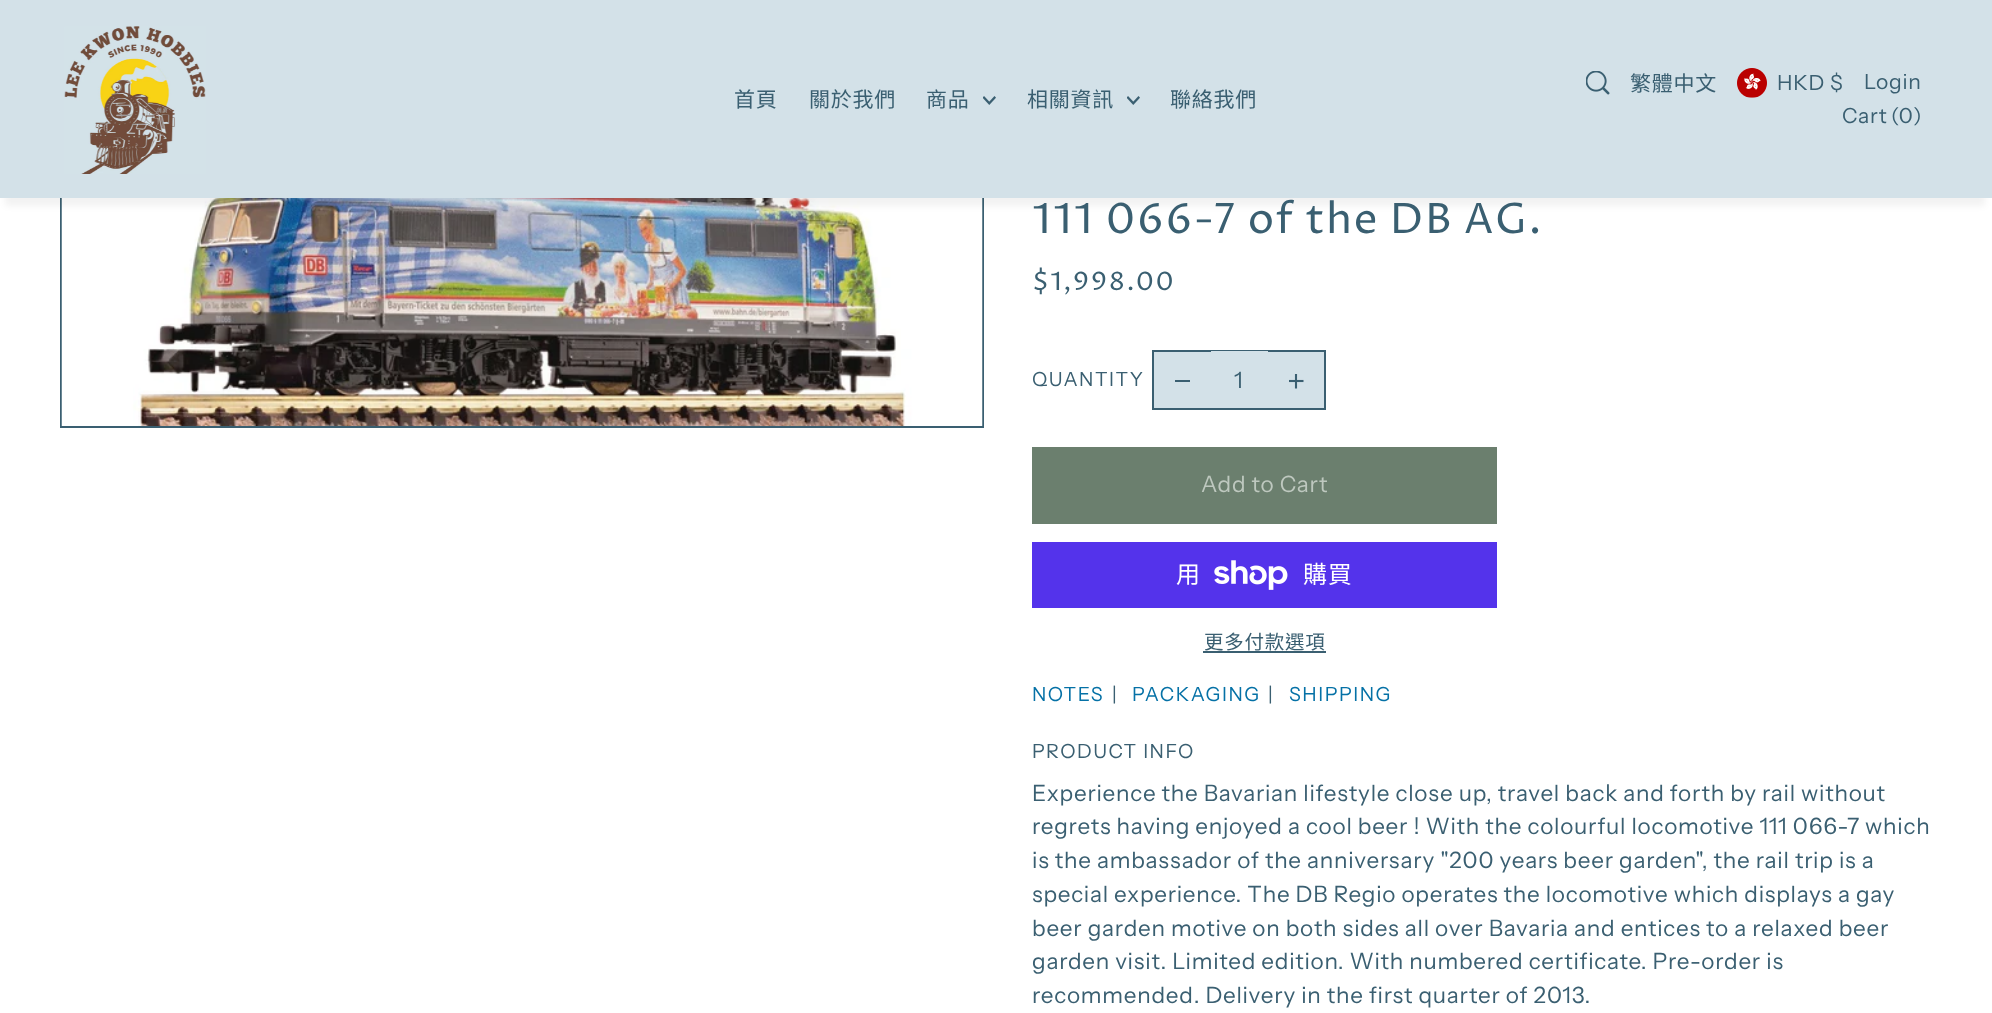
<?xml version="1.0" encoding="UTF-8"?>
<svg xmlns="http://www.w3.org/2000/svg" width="1992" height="1013">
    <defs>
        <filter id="blur1" x="-50%" y="-200%" width="200%" height="500%"><feGaussianBlur stdDeviation="3"/></filter>
    </defs>
    <rect width="100%" height="100%" fill="#FFFFFF"/>
    <rect x="61" y="103" width="922" height="324" fill="none" stroke="#3A5F71" stroke-width="2"/>
    <image x="61" y="198" width="922" height="228" href="img_05.png"/>
    <rect x="5" y="20" width="1980" height="186" fill="#000000" fill-opacity="0.05" filter="url(#blur1)"/>
    <rect x="0" y="0" width="1992" height="198" fill="#D3E1E8"/>
    <image x="64" y="26" width="142" height="148" href="img_01.png"/>
    <text x="734" y="107" font-family="Noto Sans CJK TC" font-size="21" letter-spacing="0.75" fill="#3A5F71">首頁</text>
    <text x="809" y="107" font-family="Noto Sans CJK TC" font-size="21" letter-spacing="0.75" fill="#3A5F71">關於我們</text>
    <text x="926" y="107" font-family="Noto Sans CJK TC" font-size="21" letter-spacing="0.75" fill="#3A5F71">商品</text>
    <image x="983" y="96" width="13" height="9" href="img_02.png"/>
    <text x="1027" y="107" font-family="Noto Sans CJK TC" font-size="21" letter-spacing="0.75" fill="#3A5F71">相關資訊</text>
    <image x="1127" y="96" width="13" height="9" href="img_02.png"/>
    <text x="1170" y="107" font-family="Noto Sans CJK TC" font-size="21" letter-spacing="0.75" fill="#3A5F71">聯絡我們</text>
    <image x="1586" y="71" width="24" height="24" href="img_03.png"/>
    <text x="1630" y="91" font-family="Noto Sans CJK TC" font-size="21" letter-spacing="0.75" fill="#3A5F71">繁體中文</text>
    <image x="1737" y="68" width="30" height="30" href="img_04.png"/>
    <text x="1777" y="90" font-family="Instrument Sans" font-size="21" letter-spacing="0.75" fill="#3A5F71">HKD $</text>
    <text x="1864" y="89" font-family="Instrument Sans" font-size="21" letter-spacing="0.75" fill="#3A5F71">Login</text>
    <text x="1842" y="123" font-family="Instrument Sans" font-size="21" letter-spacing="0.75" fill="#3A5F71">Cart</text>
    <text x="1891" y="123" font-family="Instrument Sans" font-size="21" letter-spacing="0.75" fill="#3A5F71">(0</text>
    <text x="1913" y="123" font-family="Instrument Sans" font-size="21" letter-spacing="0.75" fill="#3A5F71">)</text>
    <text x="1032" y="233" font-family="Proza Libre" font-size="42" letter-spacing="1.5" fill="#3A5F71">111 066-7 of the DB AG.</text>
    <text x="1032" y="290" font-family="Proza Libre" font-size="25.5" letter-spacing="1.5" fill="#3A5F71">$1,998.00</text>
    <text x="1032" y="386" font-family="Instrument Sans" font-size="19.5" letter-spacing="1.5" fill="#3A5F71">QUANTITY</text>
    <rect x="1153" y="351" width="172" height="58" fill="#D3E1E8" stroke="#3A5F71" stroke-width="2"/>
    <rect x="1175" y="380" width="15" height="2" fill="#3A5F71"/>
    <rect x="1211" y="351" width="57" height="1" fill="#D3E1E8"/>
    <text x="1234" y="388" font-family="Instrument Sans" font-size="22.5" letter-spacing="0.75" fill="#3A5F71">1</text>
    <image x="1289" y="374" width="15" height="15" href="img_06.png"/>
    <rect x="1032" y="447" width="465" height="77" fill="#6B7F6E"/>
    <text x="1201" y="492" font-family="Instrument Sans" font-size="22.5" letter-spacing="0.75" fill="#BEC8BF">Add to Cart</text>
    <rect x="1032" y="542" width="465" height="66" fill="#5433EB"/>
    <text x="1176" y="583" font-family="Noto Sans CJK TC" font-size="24" letter-spacing="0.75" fill="#FFFFFF">用</text>
    <image x="1214" y="560" width="74" height="30" href="img_07.png"/>
    <text x="1303" y="583" font-family="Noto Sans CJK TC" font-size="24" letter-spacing="0.75" fill="#FFFFFF">購買</text>
    <text x="1204" y="649" font-family="Noto Sans CJK TC" font-size="19.5" letter-spacing="0.75" fill="#3A5F71">更多付款選項</text>
    <rect x="1203" y="651" width="123" height="2" fill="#3A5F71"/>
    <text x="1032" y="701" font-family="Instrument Sans" font-size="19.5" letter-spacing="1.5" fill="#0571A6">NOTES</text>
    <text x="1112" y="701" font-family="Instrument Sans" font-size="19.5" letter-spacing="1.5" fill="#3A5F71">|</text>
    <text x="1132" y="701" font-family="Instrument Sans" font-size="19.5" letter-spacing="1.5" fill="#0571A6">PACKAGING</text>
    <text x="1268" y="701" font-family="Instrument Sans" font-size="19.5" letter-spacing="1.5" fill="#3A5F71">|</text>
    <text x="1289" y="701" font-family="Instrument Sans" font-size="19.5" letter-spacing="1.5" fill="#0571A6">SHIPPING</text>
    <text x="1032" y="758" font-family="Instrument Sans" font-size="19.5" letter-spacing="1.5" fill="#3A5F71">PRODUCT INFO</text>
    <text font-family="Instrument Sans" font-size="22.5" letter-spacing="0.75" fill="#3A5F71">
        <tspan x="1032" y="801">Experience the Bavarian lifestyle close up, travel back and forth by rail without</tspan>
        <tspan x="1032" y="834">regrets having enjoyed a cool beer ! With the colourful locomotive 111 066-7 which</tspan>
        <tspan x="1032" y="868">is the ambassador of the anniversary "200 years beer garden", the rail trip is a</tspan>
        <tspan x="1032" y="902">special experience. The DB Regio operates the locomotive which displays a gay</tspan>
        <tspan x="1032" y="936">beer garden motive on both sides all over Bavaria and entices to a relaxed beer</tspan>
        <tspan x="1032" y="969">garden visit. Limited edition. With numbered certificate. Pre-order is</tspan>
        <tspan x="1032" y="1003">recommended. Delivery in the first quarter of 2013.</tspan>
    </text>
</svg>
